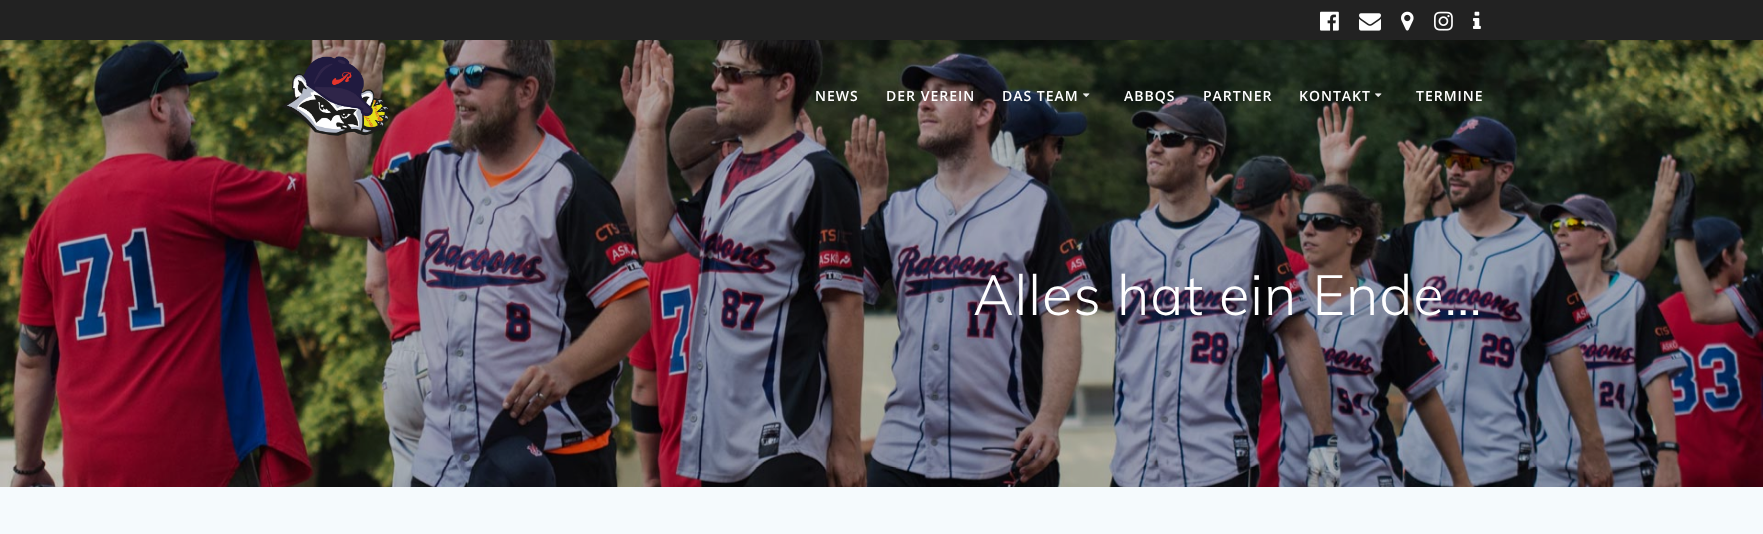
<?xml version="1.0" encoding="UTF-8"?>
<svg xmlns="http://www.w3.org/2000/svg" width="1763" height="534">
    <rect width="100%" height="100%" fill="#FFFFFF"/>
    <rect x="0" y="0" width="1763" height="40" fill="#222222"/>
    <image x="1320" y="11" width="19" height="20" href="img_01.png"/>
    <image x="1359" y="13" width="22" height="18" href="img_02.png"/>
    <image x="1401" y="11" width="13" height="20" href="img_03.png"/>
    <image x="1434" y="11" width="19" height="20" href="img_04.png"/>
    <image x="1473" y="11" width="8" height="18" href="img_05.png"/>
    <image x="0" y="40" width="1763" height="447" href="img_09.png"/>
    <image x="282" y="56" width="107" height="80" href="img_06.png"/>
    <image x="633" y="40" width="1101" height="447" href="img_10.png"/>
    <text x="815" y="101" font-family="Open Sans" font-size="14" font-weight="600" letter-spacing="1" fill="#FFFFFF">NEWS</text>
    <text x="886" y="101" font-family="Open Sans" font-size="14" font-weight="600" letter-spacing="1" fill="#FFFFFF">DER VEREIN</text>
    <text x="1002" y="101" font-family="Open Sans" font-size="14" font-weight="600" letter-spacing="1" fill="#FFFFFF">DAS TEAM</text>
    <image x="1083" y="93" width="7" height="4" href="img_07.png"/>
    <text x="1124" y="101" font-family="Open Sans" font-size="14" font-weight="600" letter-spacing="1" fill="#FFFFFF">ABBQS</text>
    <text x="1203" y="101" font-family="Open Sans" font-size="14" font-weight="600" letter-spacing="1" fill="#FFFFFF">PARTNER</text>
    <text x="1299" y="101" font-family="Open Sans" font-size="14" font-weight="600" letter-spacing="1" fill="#FFFFFF">KONTAKT</text>
    <image x="1375" y="93" width="7" height="4" href="img_08.png"/>
    <text x="1416" y="101" font-family="Open Sans" font-size="14" font-weight="600" letter-spacing="1" fill="#FFFFFF">TERMINE</text>
    <text x="973" y="315" font-family="Muli" font-size="56" font-weight="300" letter-spacing="0.9" fill="#FFFFFF">Alles hat ein Ende…</text>
    <rect x="0" y="487" width="1763" height="47" fill="#F5FAFD"/>
</svg>
